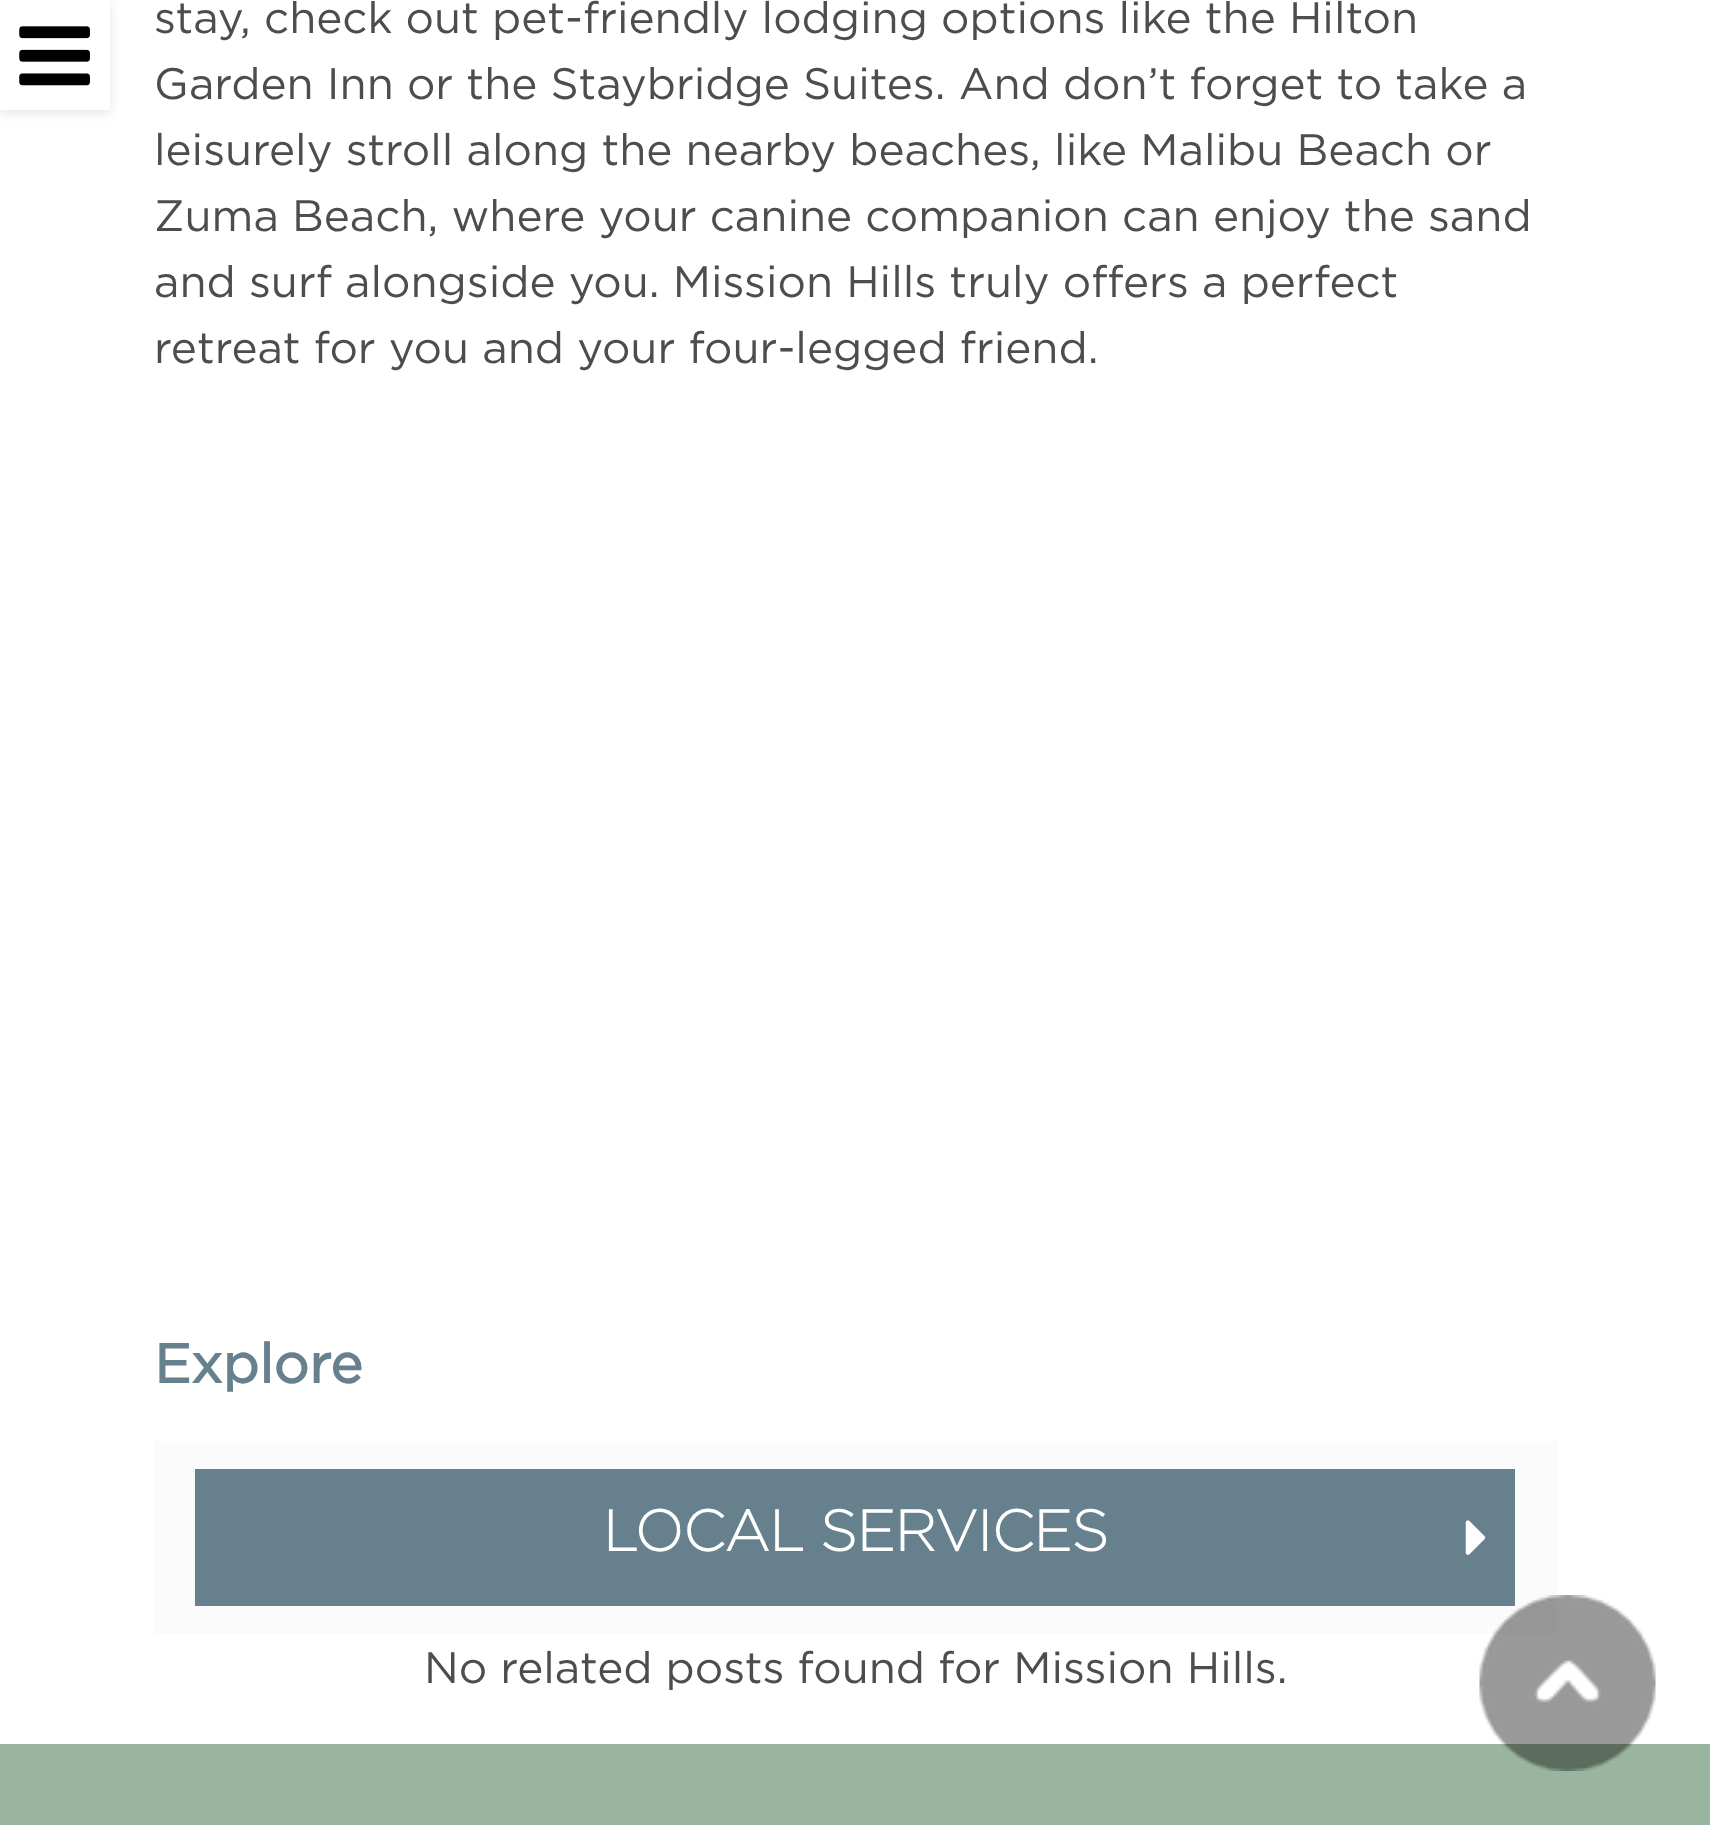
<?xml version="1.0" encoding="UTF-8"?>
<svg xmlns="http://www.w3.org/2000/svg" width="1710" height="1825">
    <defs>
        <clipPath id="clip1"><path d="M 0 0 H 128 V 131 H 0 Z M 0 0 H 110 V 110 H 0 Z" clip-rule="evenodd"/></clipPath>
        <filter id="blur1" x="-50%" y="-200%" width="200%" height="500%"><feGaussianBlur stdDeviation="5.5"/></filter>
    </defs>
    <rect width="100%" height="100%" fill="#FFFFFF"/>
    <g clip-path="url(#clip1)">
        <rect x="0" y="3" width="110" height="110" fill="#000000" fill-opacity="0.1" filter="url(#blur1)"/>
    </g>
    <image x="19" y="26" width="71" height="60" href="img_01.png"/>
    <text font-family="Gotham" font-size="44" fill="#4D4D4D">
        <tspan x="154" y="33">stay, check out pet-friendly lodging options like the Hilton</tspan>
        <tspan x="154" y="99">Garden Inn or the Staybridge Suites. And don’t forget to take a</tspan>
        <tspan x="154" y="165">leisurely stroll along the nearby beaches, like Malibu Beach or</tspan>
        <tspan x="154" y="231">Zuma Beach, where your canine companion can enjoy the sand</tspan>
        <tspan x="154" y="297">and surf alongside you. Mission Hills truly offers a perfect</tspan>
        <tspan x="154" y="363">retreat for you and your four-legged friend.</tspan>
    </text>
    <text x="154" y="1383" font-family="Gotham" font-size="55" font-weight="700" fill="#66808D">Explore</text>
    <rect x="154" y="1441" width="1403" height="193" fill="#FBFBFB"/>
    <rect x="195" y="1469" width="1320" height="137" fill="#66808D"/>
    <text x="603" y="1551" font-family="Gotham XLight" font-size="57.25" font-weight="700" fill="#FFFFFF">LOCAL SERVICES</text>
    <image x="1465" y="1520" width="21" height="35" href="img_02.png"/>
    <text x="424" y="1683" font-family="Gotham" font-size="44" fill="#4D4D4D">No related posts found for Mission Hills.</text>
    <rect x="0" y="1744" width="1710" height="81" fill="#99B59F"/>
    <image x="1479" y="1595" width="177" height="176" href="img_03.png"/>
</svg>
